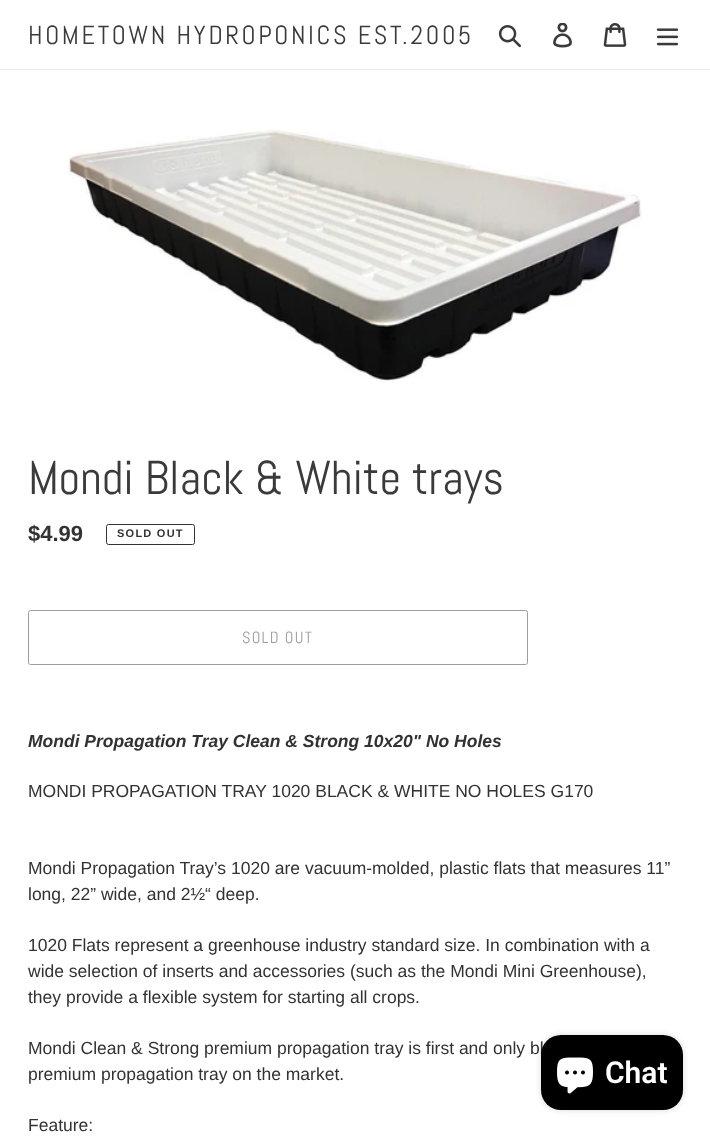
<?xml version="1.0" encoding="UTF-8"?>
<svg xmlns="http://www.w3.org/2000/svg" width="710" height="1136">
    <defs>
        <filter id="blur1" x="-50%" y="-200%" width="200%" height="500%"><feGaussianBlur stdDeviation="3"/></filter>
    </defs>
    <rect width="100%" height="100%" fill="#FFFFFF"/>
    <rect x="0" y="69" width="710" height="1" fill="#EBEBEB"/>
    <text x="28" y="44" font-family="Abel" font-size="26.25" letter-spacing="2.6" fill="#3A3A3A">HOMETOWN HYDROPONICS EST.2005</text>
    <image x="498" y="25" width="23" height="23" href="img_01.png"/>
    <image x="553" y="23" width="19" height="25" href="img_02.png"/>
    <image x="603" y="23" width="24" height="24" href="img_03.png"/>
    <image x="656" y="28" width="23" height="18" href="img_04.png"/>
    <image x="67" y="129" width="575" height="254" href="img_05.png"/>
    <text x="28" y="494" font-family="Abel" font-size="47.5" fill="#3A3A3A">Mondi Black &amp; White trays</text>
    <text x="28" y="541" font-family="Liberation Sans" font-size="22" font-weight="700" fill="#333232">$4.99</text>
    <rect x="106.5" y="524.5" width="88" height="20" rx="2" fill="none" stroke="#333232"/>
    <text x="117" y="537" font-family="Liberation Sans" font-size="11" font-weight="700" letter-spacing="1.25" fill="#333232">SOLD OUT</text>
    <rect x="28.5" y="610.5" width="499" height="54" rx="2" fill="none" stroke="#9D9D9D"/>
    <text x="242" y="643" font-family="Abel" font-size="16.25" letter-spacing="1.25" fill="#9D9D9D">SOLD OUT</text>
    <text x="28" y="747" font-family="Liberation Sans" font-size="17.5" font-weight="700" font-style="italic" fill="#333232">Mondi Propagation Tray Clean &amp; Strong 10x20" No Holes</text>
    <text x="28" y="797" font-family="Liberation Sans" font-size="17.5" fill="#333232">MONDI PROPAGATION TRAY 1020 BLACK &amp; WHITE NO HOLES G170</text>
    <text font-family="Liberation Sans" font-size="17.5" fill="#333232">
        <tspan x="28" y="874">Mondi Propagation Tray’s 1020 are vacuum-molded, plastic flats that measures 11”</tspan>
        <tspan x="28" y="900">long, 22” wide, and 2½“ deep.</tspan>
    </text>
    <text font-family="Liberation Sans" font-size="17.5" fill="#333232">
        <tspan x="28" y="951">1020 Flats represent a greenhouse industry standard size. In combination with a</tspan>
        <tspan x="28" y="977">wide selection of inserts and accessories (such as the Mondi Mini Greenhouse),</tspan>
        <tspan x="28" y="1003">they provide a flexible system for starting all crops.</tspan>
    </text>
    <text font-family="Liberation Sans" font-size="17.5" fill="#333232">
        <tspan x="28" y="1054">Mondi Clean &amp; Strong premium propagation tray is first and only bl</tspan>
        <tspan x="28" y="1080">premium propagation tray on the market.</tspan>
    </text>
    <text x="28" y="1131" font-family="Liberation Sans" font-size="17.5" fill="#333232">Feature:</text>
    <rect x="541" y="1035" width="142" height="75" rx="20" fill="#000000" fill-opacity="0.15" filter="url(#blur1)"/>
    <rect x="541" y="1035" width="142" height="75" rx="20" fill="#000000"/>
    <image x="557" y="1057" width="36" height="37" href="img_06.png"/>
    <text x="605" y="1083" font-family="Roboto" font-size="30" font-weight="600" fill="#FFFFFF">Chat</text>
</svg>
